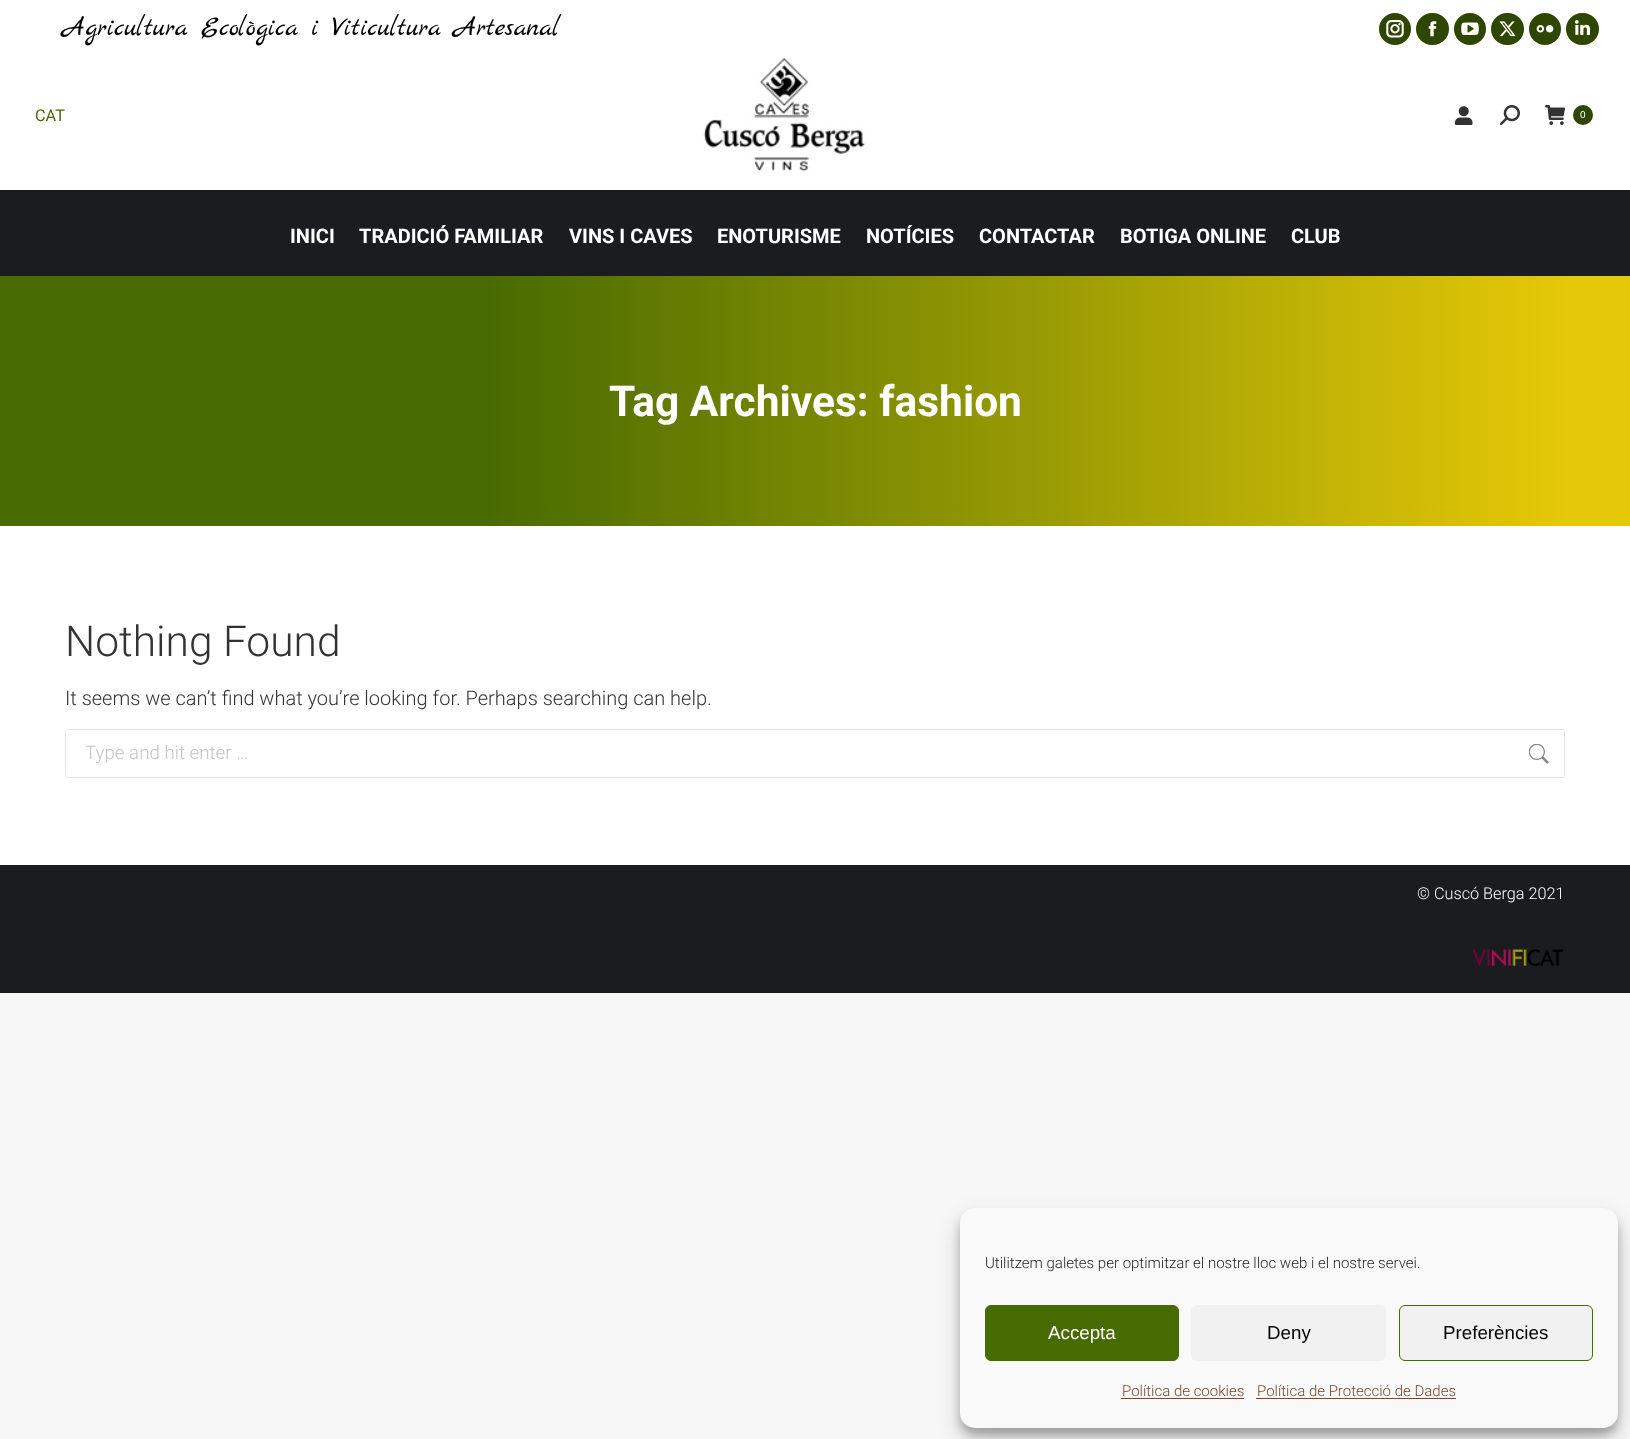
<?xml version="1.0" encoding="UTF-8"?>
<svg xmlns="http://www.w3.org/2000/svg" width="1630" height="1439">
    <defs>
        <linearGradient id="g1" gradientUnits="userSpaceOnUse" x1="0" y1="401" x2="1630" y2="401"><stop offset="0.3" stop-color="#486B00"/><stop offset="0.96" stop-color="#E5C807"/></linearGradient>
        <filter id="blur1" x="-50%" y="-200%" width="200%" height="500%"><feGaussianBlur stdDeviation="4"/></filter>
        <filter id="blur2" x="-50%" y="-200%" width="200%" height="500%"><feGaussianBlur stdDeviation="12.5"/></filter>
    </defs>
    <rect width="100%" height="100%" fill="#F7F7F7"/>
    <rect x="0" y="0" width="1630" height="865" fill="#FFFFFF"/>
    <text x="63" y="35" font-family="Marck Script" font-size="27.5" fill="#000000">Agricultura Ecològica i Viticultura Artesanal</text>
    <circle cx="1395" cy="29" r="16" fill="#2E4600"/>
    <image x="1386" y="20" width="18" height="18" href="img_01.png"/>
    <rect x="1416" y="13" width="33" height="32" rx="16" fill="#2E4600"/>
    <image x="1428" y="21" width="9" height="16" href="img_02.png"/>
    <circle cx="1470" cy="29" r="16" fill="#2E4600"/>
    <image x="1461" y="22" width="18" height="13" href="img_03.png"/>
    <rect x="1491" y="13" width="33" height="32" rx="16" fill="#2E4600"/>
    <image x="1499" y="21" width="17" height="16" href="img_04.png"/>
    <circle cx="1545" cy="29" r="16" fill="#2E4600"/>
    <image x="1536" y="25" width="18" height="8" href="img_05.png"/>
    <rect x="1566" y="13" width="33" height="32" rx="16" fill="#2E4600"/>
    <image x="1575" y="20" width="15" height="15" href="img_06.png"/>
    <text x="35" y="121" font-family="Roboto" font-size="16.25" fill="#486B00">CAT</text>
    <image x="703" y="57" width="163" height="115" href="img_07.png"/>
    <image x="1455" y="106" width="18" height="19" href="img_08.png"/>
    <image x="1500" y="105" width="20" height="20" href="img_09.png"/>
    <image x="1545" y="105" width="20" height="20" href="img_10.png"/>
    <circle cx="1583" cy="115" r="10" fill="#2E4600"/>
    <text x="1580" y="118" font-family="Liberation Sans" font-size="10" fill="#FFFFFF">0</text>
    <rect x="0" y="190" width="1630" height="86" fill="#1A1C20"/>
    <text x="290" y="243" font-family="Roboto" font-size="20" font-weight="700" fill="#FFFFFF">INICI</text>
    <text x="359" y="243" font-family="Roboto" font-size="20" font-weight="700" fill="#FFFFFF">TRADICIÓ FAMILIAR</text>
    <text x="569" y="243" font-family="Roboto" font-size="20" font-weight="700" fill="#FFFFFF">VINS I CAVES</text>
    <text x="717" y="243" font-family="Roboto" font-size="20" font-weight="700" fill="#FFFFFF">ENOTURISME</text>
    <text x="866" y="243" font-family="Roboto" font-size="20" font-weight="700" fill="#FFFFFF">NOTÍCIES</text>
    <text x="979" y="243" font-family="Roboto" font-size="20" font-weight="700" fill="#FFFFFF">CONTACTAR</text>
    <text x="1120" y="243" font-family="Roboto" font-size="20" font-weight="700" fill="#FFFFFF">BOTIGA ONLINE</text>
    <text x="1291" y="243" font-family="Roboto" font-size="20" font-weight="700" fill="#FFFFFF">CLUB</text>
    <rect x="0" y="276" width="1630" height="250" fill="url(#g1)"/>
    <text x="609" y="416" font-family="Roboto" font-size="42.5" font-weight="700" fill="#FFFFFF">Tag Archives: fashion</text>
    <text x="65" y="656" font-family="Roboto" font-size="42.5" font-weight="300" fill="#333333">Nothing Found</text>
    <text x="65" y="705" font-family="Roboto" font-size="20" font-weight="300" fill="#333333">It seems we can’t find what you’re looking for. Perhaps searching can help.</text>
    <rect x="65.5" y="729.5" width="1499" height="48" rx="2" fill="none" stroke="#E7E7E7"/>
    <text x="85" y="759" font-family="Roboto" font-size="18.75" font-weight="300" fill="#C2C3C6">Type and hit enter …</text>
    <image x="1529" y="744" width="20" height="20" href="img_11.png"/>
    <rect x="0" y="865" width="1630" height="128" fill="#1A1C20"/>
    <text x="1417" y="899" font-family="Roboto" font-size="16.25" font-weight="300" fill="#FFFFFF">© Cuscó Berga 2021</text>
    <image x="1472" y="949" width="91" height="18" href="img_12.png"/>
    <rect x="960" y="1215" width="658" height="220" rx="15" fill="#000000" fill-opacity="0.23" filter="url(#blur1)"/>
    <rect x="960" y="1220" width="658" height="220" rx="15" fill="#000000" fill-opacity="0.19" filter="url(#blur2)"/>
    <rect x="960" y="1208" width="658" height="220" rx="15" fill="#F9F9F9"/>
    <text x="985" y="1268" font-family="Roboto" font-size="15" font-weight="300" fill="#191E23">Utilitzem galetes per optimitzar el nostre lloc web i el nostre servei.</text>
    <rect x="985.5" y="1305.5" width="193" height="55" rx="5.5" fill="#486B00" stroke="#486B00"/>
    <text x="1048" y="1339" font-family="Liberation Sans" font-size="18.75" fill="#FFFFFF">Accepta</text>
    <rect x="1191" y="1305" width="195" height="56" rx="6" fill="#F1F1F1"/>
    <text x="1267" y="1339" font-family="Liberation Sans" font-size="18.75" fill="#000000">Deny</text>
    <rect x="1399.5" y="1305.5" width="193" height="55" rx="5.5" fill="#F1F1F1" stroke="#486B00"/>
    <text x="1443" y="1339" font-family="Liberation Sans" font-size="18.75" fill="#000000">Preferències</text>
    <text x="1122" y="1396" font-family="Roboto" font-size="15" font-weight="300" fill="#7D4427">Política de cookies</text>
    <rect x="1121" y="1398" width="123" height="1" fill="#7D4427"/>
    <text x="1257" y="1396" font-family="Roboto" font-size="15" font-weight="300" fill="#7D4427">Política de Protecció de Dades</text>
    <rect x="1256" y="1398" width="200" height="1" fill="#7D4427"/>
</svg>
